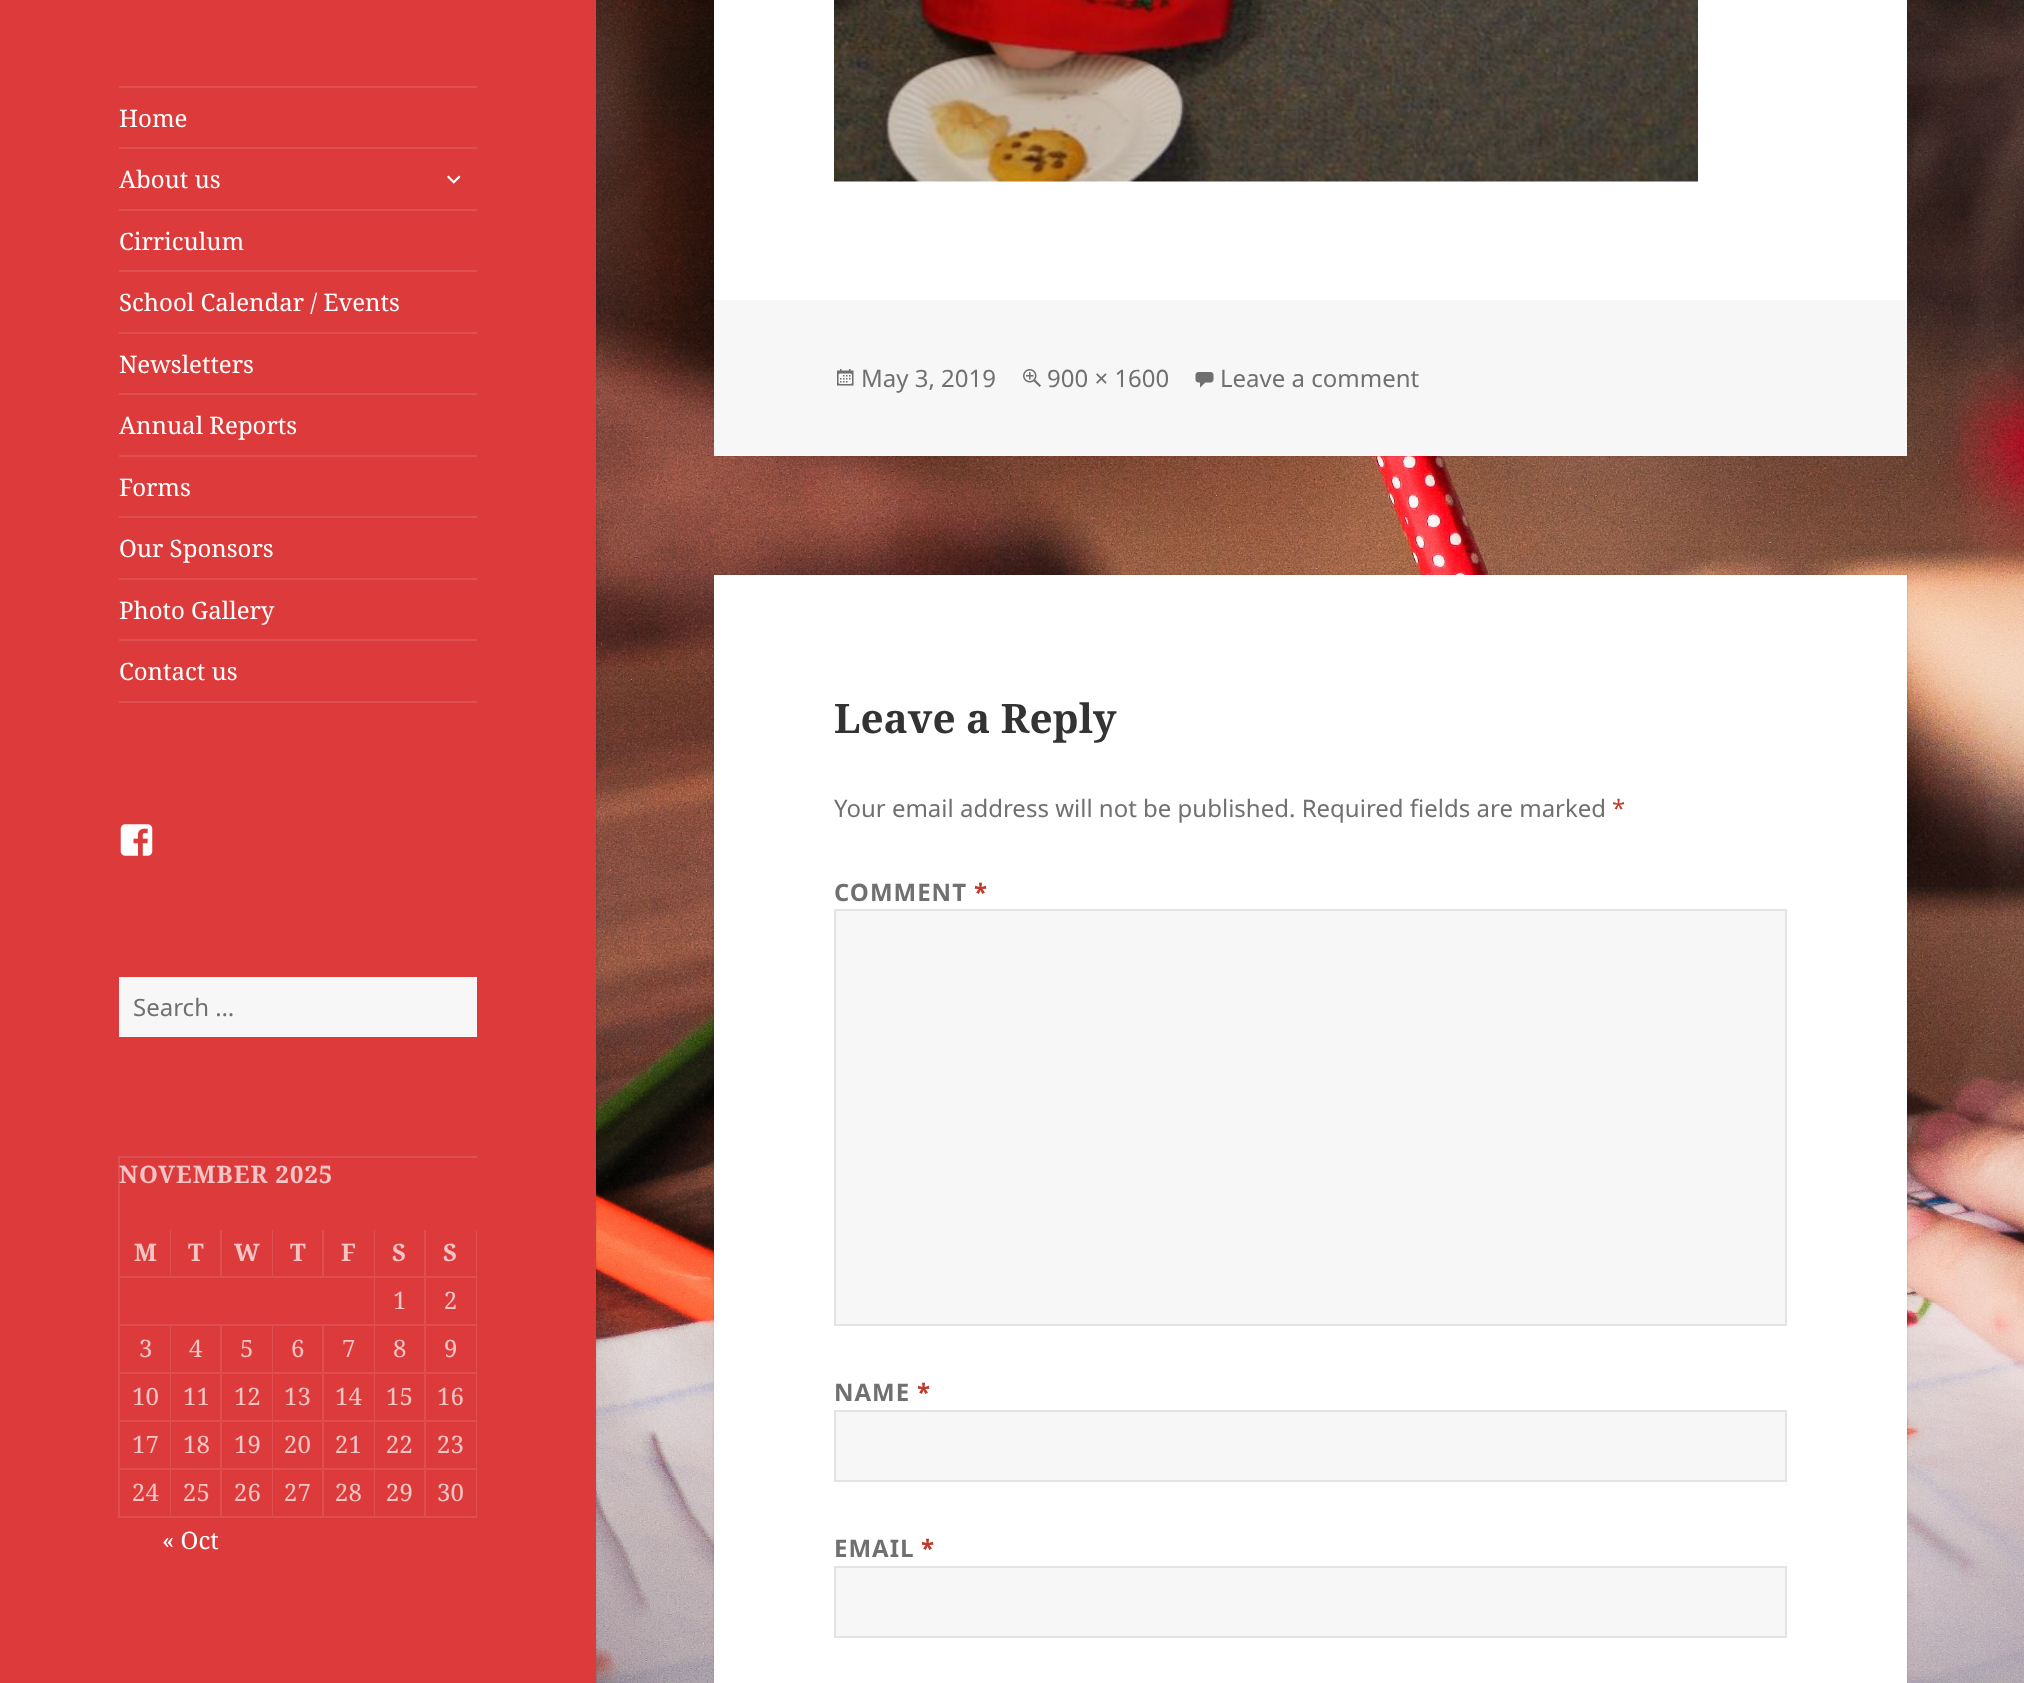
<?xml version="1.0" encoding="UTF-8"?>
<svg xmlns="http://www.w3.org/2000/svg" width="2024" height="1683">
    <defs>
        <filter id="blur1" x="-50%" y="-200%" width="200%" height="500%"><feGaussianBlur stdDeviation="1"/></filter>
    </defs>
    <rect width="100%" height="100%" fill="#FFFFFF"/>
    <image x="596" y="0" width="1428" height="1683" href="img_01.png"/>
    <rect x="0" y="0" width="596" height="1683" fill="#000000" fill-opacity="0.15" filter="url(#blur1)"/>
    <rect x="0" y="0" width="596" height="1683" fill="#DD3B3B"/>
    <rect x="119" y="86" width="358" height="2" fill="#E04F4F"/>
    <rect x="119" y="701" width="358" height="2" fill="#E04F4F"/>
    <text x="119" y="127" font-family="Noto Serif" font-size="24" fill="#FFFFFF">Home</text>
    <rect x="119" y="147" width="358" height="2" fill="#E04F4F"/>
    <text x="119" y="188" font-family="Noto Serif" font-size="24" fill="#FFFFFF">About us</text>
    <image x="447" y="175" width="14" height="9" href="img_02.png"/>
    <rect x="119" y="209" width="358" height="2" fill="#E04F4F"/>
    <text x="119" y="250" font-family="Noto Serif" font-size="24" fill="#FFFFFF">Cirriculum</text>
    <rect x="119" y="270" width="358" height="2" fill="#E04F4F"/>
    <text x="119" y="311" font-family="Noto Serif" font-size="24" fill="#FFFFFF">School Calendar / Events</text>
    <rect x="119" y="332" width="358" height="2" fill="#E04F4F"/>
    <text x="119" y="373" font-family="Noto Serif" font-size="24" fill="#FFFFFF">Newsletters</text>
    <rect x="119" y="393" width="358" height="2" fill="#E04F4F"/>
    <text x="119" y="434" font-family="Noto Serif" font-size="24" fill="#FFFFFF">Annual Reports</text>
    <rect x="119" y="455" width="358" height="2" fill="#E04F4F"/>
    <text x="119" y="496" font-family="Noto Serif" font-size="24" fill="#FFFFFF">Forms</text>
    <rect x="119" y="516" width="358" height="2" fill="#E04F4F"/>
    <text x="119" y="557" font-family="Noto Serif" font-size="24" fill="#FFFFFF">Our Sponsors</text>
    <rect x="119" y="578" width="358" height="2" fill="#E04F4F"/>
    <text x="119" y="619" font-family="Noto Serif" font-size="24" fill="#FFFFFF">Photo Gallery</text>
    <rect x="119" y="639" width="358" height="2" fill="#E04F4F"/>
    <text x="119" y="680" font-family="Noto Serif" font-size="24" fill="#FFFFFF">Contact us</text>
    <image x="120" y="824" width="33" height="32" href="img_03.png"/>
    <rect x="119" y="977" width="358" height="60" fill="#F7F7F7"/>
    <text x="133" y="1016" font-family="Noto Sans" font-size="24" fill="#707070">Search …</text>
    <path d="M 118 1156 H 477 V 1158 H 120 Z" fill="#E04F4F"/>
    <path d="M 118 1518 V 1156 L 120 1158 V 1518 Z" fill="#FFFFFF" fill-opacity="0.1"/>
    <text x="119" y="1183" font-family="Noto Serif" font-size="24" font-weight="700" letter-spacing="1" fill="#F5C4C4">NOVEMBER 2025</text>
    <path d="M 171 1230 V 1278 L 170 1276 V 1230 Z" fill="#E04F4F"/>
    <path d="M 171 1278 H 120 V 1276 H 170 Z" fill="#FFFFFF" fill-opacity="0.1"/>
    <text x="134" y="1261" font-family="Noto Serif" font-size="24" font-weight="700" fill="#F5C4C4">M</text>
    <path d="M 222 1230 V 1278 L 220 1276 V 1230 Z" fill="#E04F4F"/>
    <path d="M 222 1278 H 171 V 1276 H 220 Z" fill="#FFFFFF" fill-opacity="0.1"/>
    <text x="188" y="1261" font-family="Noto Serif" font-size="24" font-weight="700" fill="#F5C4C4">T</text>
    <path d="M 273 1230 V 1278 L 272 1276 V 1230 Z" fill="#E04F4F"/>
    <path d="M 273 1278 H 222 V 1276 H 272 Z" fill="#FFFFFF" fill-opacity="0.1"/>
    <text x="234" y="1261" font-family="Noto Serif" font-size="24" font-weight="700" fill="#F5C4C4">W</text>
    <path d="M 324 1230 V 1278 L 322 1276 V 1230 Z" fill="#E04F4F"/>
    <path d="M 324 1278 H 273 V 1276 H 322 Z" fill="#FFFFFF" fill-opacity="0.1"/>
    <text x="290" y="1261" font-family="Noto Serif" font-size="24" font-weight="700" fill="#F5C4C4">T</text>
    <path d="M 375 1230 V 1278 L 374 1276 V 1230 Z" fill="#E04F4F"/>
    <path d="M 375 1278 H 324 V 1276 H 374 Z" fill="#FFFFFF" fill-opacity="0.1"/>
    <text x="341" y="1261" font-family="Noto Serif" font-size="24" font-weight="700" fill="#F5C4C4">F</text>
    <path d="M 426 1230 V 1278 L 424 1276 V 1230 Z" fill="#E04F4F"/>
    <path d="M 426 1278 H 375 V 1276 H 424 Z" fill="#FFFFFF" fill-opacity="0.1"/>
    <text x="392" y="1261" font-family="Noto Serif" font-size="24" font-weight="700" fill="#F5C4C4">S</text>
    <path d="M 477 1230 V 1278 L 476 1276 V 1230 Z" fill="#E04F4F"/>
    <path d="M 477 1278 H 426 V 1276 H 476 Z" fill="#FFFFFF" fill-opacity="0.1"/>
    <text x="443" y="1261" font-family="Noto Serif" font-size="24" font-weight="700" fill="#F5C4C4">S</text>
    <path d="M 375 1278 V 1326 L 374 1324 V 1278 Z" fill="#E04F4F"/>
    <path d="M 375 1326 H 120 V 1324 H 374 Z" fill="#FFFFFF" fill-opacity="0.1"/>
    <path d="M 426 1278 V 1326 L 424 1324 V 1278 Z" fill="#E04F4F"/>
    <path d="M 426 1326 H 375 V 1324 H 424 Z" fill="#FFFFFF" fill-opacity="0.1"/>
    <text x="393" y="1309" font-family="Noto Serif" font-size="24" fill="#F5C4C4">1</text>
    <path d="M 477 1278 V 1326 L 476 1324 V 1278 Z" fill="#E04F4F"/>
    <path d="M 477 1326 H 426 V 1324 H 476 Z" fill="#FFFFFF" fill-opacity="0.1"/>
    <text x="444" y="1309" font-family="Noto Serif" font-size="24" fill="#F5C4C4">2</text>
    <path d="M 171 1326 V 1374 L 170 1372 V 1326 Z" fill="#E04F4F"/>
    <path d="M 171 1374 H 120 V 1372 H 170 Z" fill="#FFFFFF" fill-opacity="0.1"/>
    <text x="139" y="1357" font-family="Noto Serif" font-size="24" fill="#F5C4C4">3</text>
    <path d="M 222 1326 V 1374 L 220 1372 V 1326 Z" fill="#E04F4F"/>
    <path d="M 222 1374 H 171 V 1372 H 220 Z" fill="#FFFFFF" fill-opacity="0.1"/>
    <text x="189" y="1357" font-family="Noto Serif" font-size="24" fill="#F5C4C4">4</text>
    <path d="M 273 1326 V 1374 L 272 1372 V 1326 Z" fill="#E04F4F"/>
    <path d="M 273 1374 H 222 V 1372 H 272 Z" fill="#FFFFFF" fill-opacity="0.1"/>
    <text x="240" y="1357" font-family="Noto Serif" font-size="24" fill="#F5C4C4">5</text>
    <path d="M 324 1326 V 1374 L 322 1372 V 1326 Z" fill="#E04F4F"/>
    <path d="M 324 1374 H 273 V 1372 H 322 Z" fill="#FFFFFF" fill-opacity="0.1"/>
    <text x="291" y="1357" font-family="Noto Serif" font-size="24" fill="#F5C4C4">6</text>
    <path d="M 375 1326 V 1374 L 374 1372 V 1326 Z" fill="#E04F4F"/>
    <path d="M 375 1374 H 324 V 1372 H 374 Z" fill="#FFFFFF" fill-opacity="0.1"/>
    <text x="342" y="1357" font-family="Noto Serif" font-size="24" fill="#F5C4C4">7</text>
    <path d="M 426 1326 V 1374 L 424 1372 V 1326 Z" fill="#E04F4F"/>
    <path d="M 426 1374 H 375 V 1372 H 424 Z" fill="#FFFFFF" fill-opacity="0.1"/>
    <text x="393" y="1357" font-family="Noto Serif" font-size="24" fill="#F5C4C4">8</text>
    <path d="M 477 1326 V 1374 L 476 1372 V 1326 Z" fill="#E04F4F"/>
    <path d="M 477 1374 H 426 V 1372 H 476 Z" fill="#FFFFFF" fill-opacity="0.1"/>
    <text x="444" y="1357" font-family="Noto Serif" font-size="24" fill="#F5C4C4">9</text>
    <path d="M 171 1374 V 1422 L 170 1420 V 1374 Z" fill="#E04F4F"/>
    <path d="M 171 1422 H 120 V 1420 H 170 Z" fill="#FFFFFF" fill-opacity="0.1"/>
    <text x="132" y="1405" font-family="Noto Serif" font-size="24" fill="#F5C4C4">10</text>
    <path d="M 222 1374 V 1422 L 220 1420 V 1374 Z" fill="#E04F4F"/>
    <path d="M 222 1422 H 171 V 1420 H 220 Z" fill="#FFFFFF" fill-opacity="0.1"/>
    <text x="183" y="1405" font-family="Noto Serif" font-size="24" fill="#F5C4C4">11</text>
    <path d="M 273 1374 V 1422 L 272 1420 V 1374 Z" fill="#E04F4F"/>
    <path d="M 273 1422 H 222 V 1420 H 272 Z" fill="#FFFFFF" fill-opacity="0.1"/>
    <text x="234" y="1405" font-family="Noto Serif" font-size="24" fill="#F5C4C4">12</text>
    <path d="M 324 1374 V 1422 L 322 1420 V 1374 Z" fill="#E04F4F"/>
    <path d="M 324 1422 H 273 V 1420 H 322 Z" fill="#FFFFFF" fill-opacity="0.1"/>
    <text x="284" y="1405" font-family="Noto Serif" font-size="24" fill="#F5C4C4">13</text>
    <path d="M 375 1374 V 1422 L 374 1420 V 1374 Z" fill="#E04F4F"/>
    <path d="M 375 1422 H 324 V 1420 H 374 Z" fill="#FFFFFF" fill-opacity="0.1"/>
    <text x="335" y="1405" font-family="Noto Serif" font-size="24" fill="#F5C4C4">14</text>
    <path d="M 426 1374 V 1422 L 424 1420 V 1374 Z" fill="#E04F4F"/>
    <path d="M 426 1422 H 375 V 1420 H 424 Z" fill="#FFFFFF" fill-opacity="0.1"/>
    <text x="386" y="1405" font-family="Noto Serif" font-size="24" fill="#F5C4C4">15</text>
    <path d="M 477 1374 V 1422 L 476 1420 V 1374 Z" fill="#E04F4F"/>
    <path d="M 477 1422 H 426 V 1420 H 476 Z" fill="#FFFFFF" fill-opacity="0.1"/>
    <text x="437" y="1405" font-family="Noto Serif" font-size="24" fill="#F5C4C4">16</text>
    <path d="M 171 1422 V 1470 L 170 1468 V 1422 Z" fill="#E04F4F"/>
    <path d="M 171 1470 H 120 V 1468 H 170 Z" fill="#FFFFFF" fill-opacity="0.1"/>
    <text x="132" y="1453" font-family="Noto Serif" font-size="24" fill="#F5C4C4">17</text>
    <path d="M 222 1422 V 1470 L 220 1468 V 1422 Z" fill="#E04F4F"/>
    <path d="M 222 1470 H 171 V 1468 H 220 Z" fill="#FFFFFF" fill-opacity="0.1"/>
    <text x="183" y="1453" font-family="Noto Serif" font-size="24" fill="#F5C4C4">18</text>
    <path d="M 273 1422 V 1470 L 272 1468 V 1422 Z" fill="#E04F4F"/>
    <path d="M 273 1470 H 222 V 1468 H 272 Z" fill="#FFFFFF" fill-opacity="0.1"/>
    <text x="234" y="1453" font-family="Noto Serif" font-size="24" fill="#F5C4C4">19</text>
    <path d="M 324 1422 V 1470 L 322 1468 V 1422 Z" fill="#E04F4F"/>
    <path d="M 324 1470 H 273 V 1468 H 322 Z" fill="#FFFFFF" fill-opacity="0.1"/>
    <text x="284" y="1453" font-family="Noto Serif" font-size="24" fill="#F5C4C4">20</text>
    <path d="M 375 1422 V 1470 L 374 1468 V 1422 Z" fill="#E04F4F"/>
    <path d="M 375 1470 H 324 V 1468 H 374 Z" fill="#FFFFFF" fill-opacity="0.1"/>
    <text x="335" y="1453" font-family="Noto Serif" font-size="24" fill="#F5C4C4">21</text>
    <path d="M 426 1422 V 1470 L 424 1468 V 1422 Z" fill="#E04F4F"/>
    <path d="M 426 1470 H 375 V 1468 H 424 Z" fill="#FFFFFF" fill-opacity="0.1"/>
    <text x="386" y="1453" font-family="Noto Serif" font-size="24" fill="#F5C4C4">22</text>
    <path d="M 477 1422 V 1470 L 476 1468 V 1422 Z" fill="#E04F4F"/>
    <path d="M 477 1470 H 426 V 1468 H 476 Z" fill="#FFFFFF" fill-opacity="0.1"/>
    <text x="437" y="1453" font-family="Noto Serif" font-size="24" fill="#F5C4C4">23</text>
    <path d="M 171 1470 V 1518 L 170 1516 V 1470 Z" fill="#E04F4F"/>
    <path d="M 171 1518 H 120 V 1516 H 170 Z" fill="#FFFFFF" fill-opacity="0.1"/>
    <text x="132" y="1501" font-family="Noto Serif" font-size="24" fill="#F5C4C4">24</text>
    <path d="M 222 1470 V 1518 L 220 1516 V 1470 Z" fill="#E04F4F"/>
    <path d="M 222 1518 H 171 V 1516 H 220 Z" fill="#FFFFFF" fill-opacity="0.1"/>
    <text x="183" y="1501" font-family="Noto Serif" font-size="24" fill="#F5C4C4">25</text>
    <path d="M 273 1470 V 1518 L 272 1516 V 1470 Z" fill="#E04F4F"/>
    <path d="M 273 1518 H 222 V 1516 H 272 Z" fill="#FFFFFF" fill-opacity="0.1"/>
    <text x="234" y="1501" font-family="Noto Serif" font-size="24" fill="#F5C4C4">26</text>
    <path d="M 324 1470 V 1518 L 322 1516 V 1470 Z" fill="#E04F4F"/>
    <path d="M 324 1518 H 273 V 1516 H 322 Z" fill="#FFFFFF" fill-opacity="0.1"/>
    <text x="284" y="1501" font-family="Noto Serif" font-size="24" fill="#F5C4C4">27</text>
    <path d="M 375 1470 V 1518 L 374 1516 V 1470 Z" fill="#E04F4F"/>
    <path d="M 375 1518 H 324 V 1516 H 374 Z" fill="#FFFFFF" fill-opacity="0.1"/>
    <text x="335" y="1501" font-family="Noto Serif" font-size="24" fill="#F5C4C4">28</text>
    <path d="M 426 1470 V 1518 L 424 1516 V 1470 Z" fill="#E04F4F"/>
    <path d="M 426 1518 H 375 V 1516 H 424 Z" fill="#FFFFFF" fill-opacity="0.1"/>
    <text x="386" y="1501" font-family="Noto Serif" font-size="24" fill="#F5C4C4">29</text>
    <path d="M 477 1470 V 1518 L 476 1516 V 1470 Z" fill="#E04F4F"/>
    <path d="M 477 1518 H 426 V 1516 H 476 Z" fill="#FFFFFF" fill-opacity="0.1"/>
    <text x="437" y="1501" font-family="Noto Serif" font-size="24" fill="#F5C4C4">30</text>
    <text x="162" y="1549" font-family="Noto Serif" font-size="24" fill="#FFFFFF">« Oct</text>
    <rect x="714" y="-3" width="1193" height="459" fill="#000000" fill-opacity="0.15" filter="url(#blur1)"/>
    <rect x="714" y="0" width="1193" height="300" fill="#FFFFFF"/>
    <image x="834" y="0" width="864" height="182" href="img_04.png"/>
    <rect x="714" y="300" width="1193" height="156" fill="#F7F7F7"/>
    <image x="837" y="369" width="17" height="17" href="img_05.png"/>
    <text x="861" y="387" font-family="Noto Sans" font-size="24" fill="#707070">May 3, 2019</text>
    <image x="1023" y="369" width="18" height="18" href="img_06.png"/>
    <text x="1047" y="387" font-family="Noto Sans" font-size="24" fill="#707070">900 × 1600</text>
    <image x="1195" y="372" width="19" height="16" href="img_07.png"/>
    <text x="1220" y="387" font-family="Noto Sans" font-size="24" fill="#707070">Leave a comment</text>
    <rect x="714" y="575" width="1193" height="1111" fill="#000000" fill-opacity="0.15" filter="url(#blur1)"/>
    <rect x="714" y="575" width="1193" height="1108" fill="#FFFFFF"/>
    <text x="834" y="733" font-family="Noto Serif" font-size="40.5" font-weight="700" fill="#333333">Leave a Reply</text>
    <text x="834" y="817" font-family="Noto Sans" font-size="24" fill="#707070">Your email address will not be published. Required fields are marked</text>
    <text x="1612" y="817" font-family="Noto Sans" font-size="24" fill="#C0392B">*</text>
    <text x="834" y="901" font-family="Noto Sans" font-size="24" font-weight="700" letter-spacing="1" fill="#707070">COMMENT</text>
    <text x="974" y="901" font-family="Noto Sans" font-size="24" font-weight="700" letter-spacing="1" fill="#C0392B">*</text>
    <rect x="835" y="910" width="951" height="415" fill="#F7F7F7" stroke="#E3E3E3" stroke-width="2"/>
    <text x="834" y="1401" font-family="Noto Sans" font-size="24" font-weight="700" letter-spacing="1" fill="#707070">NAME</text>
    <text x="917" y="1401" font-family="Noto Sans" font-size="24" font-weight="700" letter-spacing="1" fill="#C0392B">*</text>
    <rect x="835" y="1411" width="951" height="70" fill="#F7F7F7" stroke="#E3E3E3" stroke-width="2"/>
    <text x="834" y="1557" font-family="Noto Sans" font-size="24" font-weight="700" letter-spacing="1" fill="#707070">EMAIL</text>
    <text x="921" y="1557" font-family="Noto Sans" font-size="24" font-weight="700" letter-spacing="1" fill="#C0392B">*</text>
    <rect x="835" y="1567" width="951" height="70" fill="#F7F7F7" stroke="#E3E3E3" stroke-width="2"/>
</svg>
